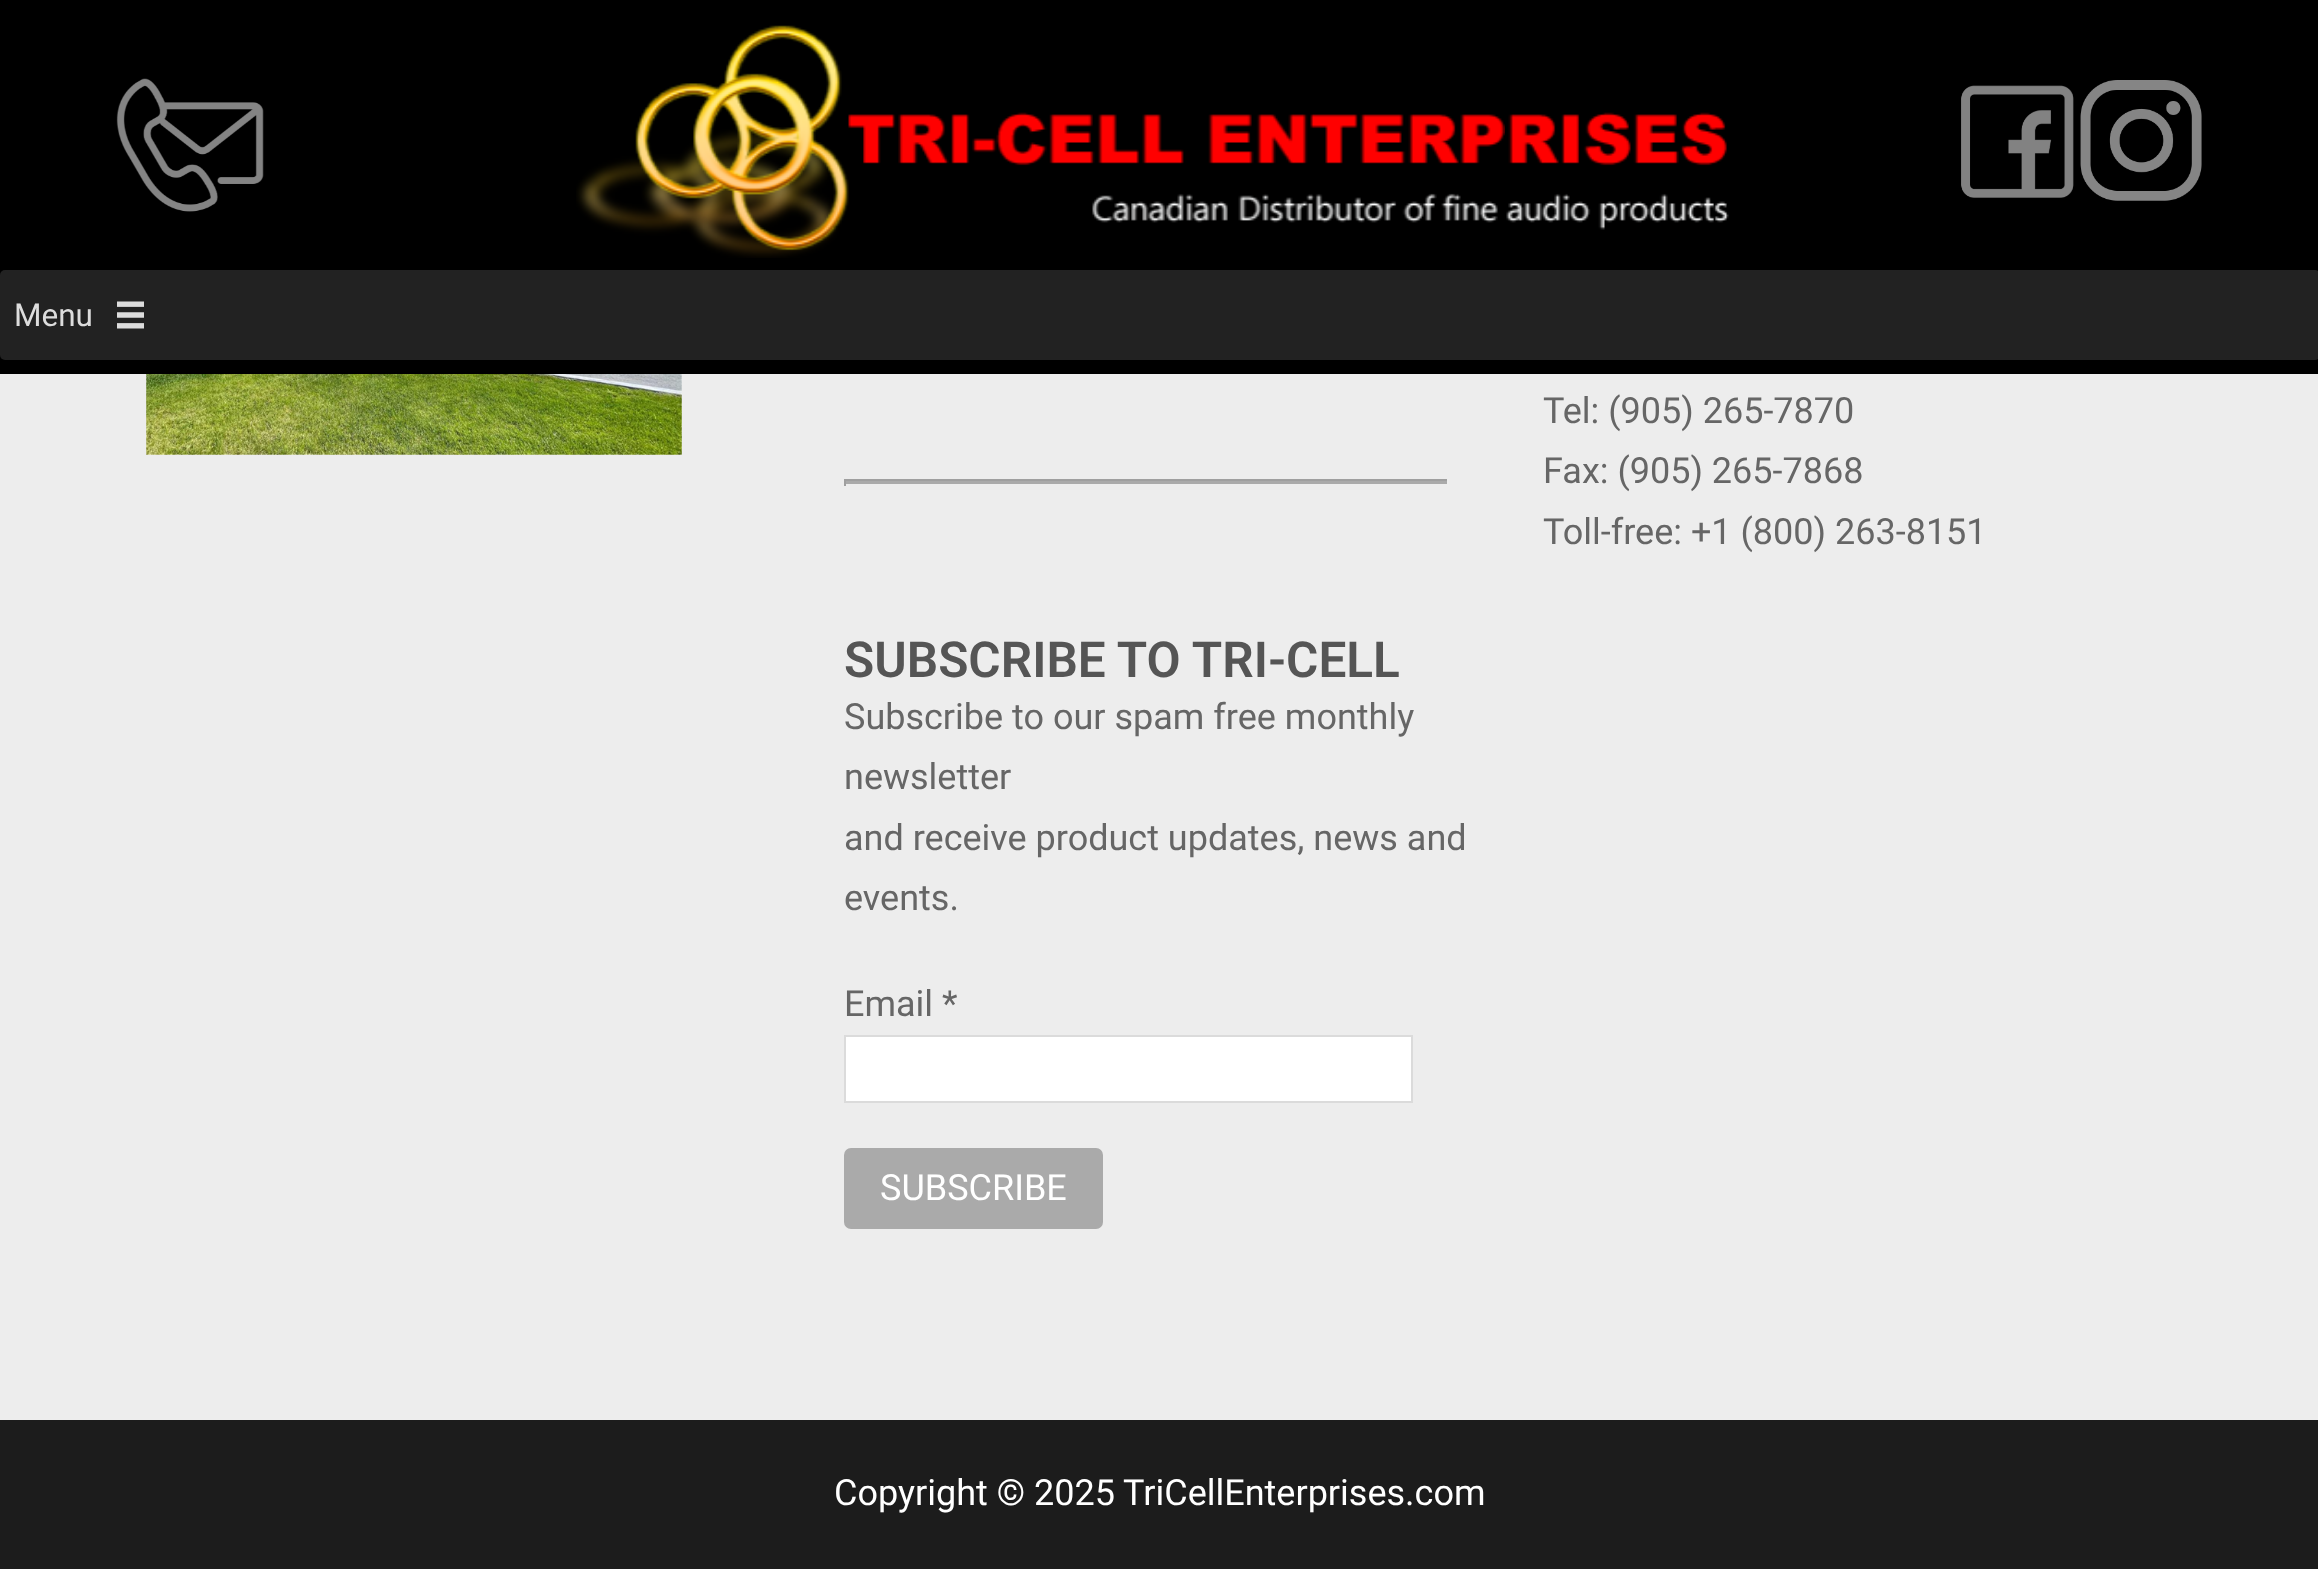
<?xml version="1.0" encoding="UTF-8"?>
<svg xmlns="http://www.w3.org/2000/svg" width="2318" height="1569">
    <rect width="100%" height="100%" fill="#EDEDED"/>
    <rect x="0" y="0" width="2318" height="374" fill="#000000"/>
    <image x="116" y="78" width="148" height="134" href="img_01.png"/>
    <image x="1961" y="85" width="113" height="113" href="img_02.png"/>
    <image x="2080" y="80" width="122" height="121" href="img_03.png"/>
    <image x="576" y="25" width="1153" height="233" href="img_04.png"/>
    <rect x="0" y="270" width="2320" height="90" rx="5" fill="#222222"/>
    <text x="14" y="326" font-family="Roboto" font-size="31.5" fill="#DDDDDD">Menu</text>
    <image x="117" y="301" width="27" height="28" href="img_05.png"/>
    <image x="146" y="374" width="536" height="81" href="img_06.png"/>
    <text font-family="Roboto" font-size="36" fill="#666666">
        <tspan x="1543" y="423">Tel: (905) 265-7870</tspan>
        <tspan x="1543" y="483">Fax: (905) 265-7868</tspan>
        <tspan x="1543" y="544">Toll-free: +1 (800) 263-8151</tspan>
    </text>
    <rect x="844" y="481" width="605" height="3" fill="#AAAAAA"/>
    <rect x="844" y="479" width="605" height="2" fill="#9F9F9F"/>
    <rect x="1447" y="479" width="2" height="7" fill="#EEEEEE"/>
    <rect x="844" y="479" width="2" height="7" fill="#9F9F9F"/>
    <text x="844" y="677" font-family="Roboto" font-size="49.5" font-weight="600" fill="#555555">SUBSCRIBE TO TRI-CELL</text>
    <text font-family="Roboto" font-size="36" fill="#666666">
        <tspan x="844" y="729">Subscribe to our spam free monthly</tspan>
        <tspan x="844" y="789">newsletter</tspan>
        <tspan x="844" y="850">and receive product updates, news and</tspan>
        <tspan x="844" y="910">events.</tspan>
    </text>
    <text x="844" y="1016" font-family="Roboto" font-size="36" fill="#666666">Email *</text>
    <rect x="845" y="1036" width="567" height="66" fill="#FFFFFF" stroke="#DBDBDB" stroke-width="2"/>
    <rect x="844" y="1148" width="259" height="81" rx="7" fill="#AAAAAA"/>
    <text x="880" y="1200" font-family="Roboto" font-size="36" fill="#FFFFFF">SUBSCRIBE</text>
    <rect x="0" y="1420" width="2318" height="149" fill="#1C1C1C"/>
    <text x="834" y="1505" font-family="Roboto" font-size="36" fill="#FFFFFF">Copyright © 2025 TriCellEnterprises.com</text>
</svg>
